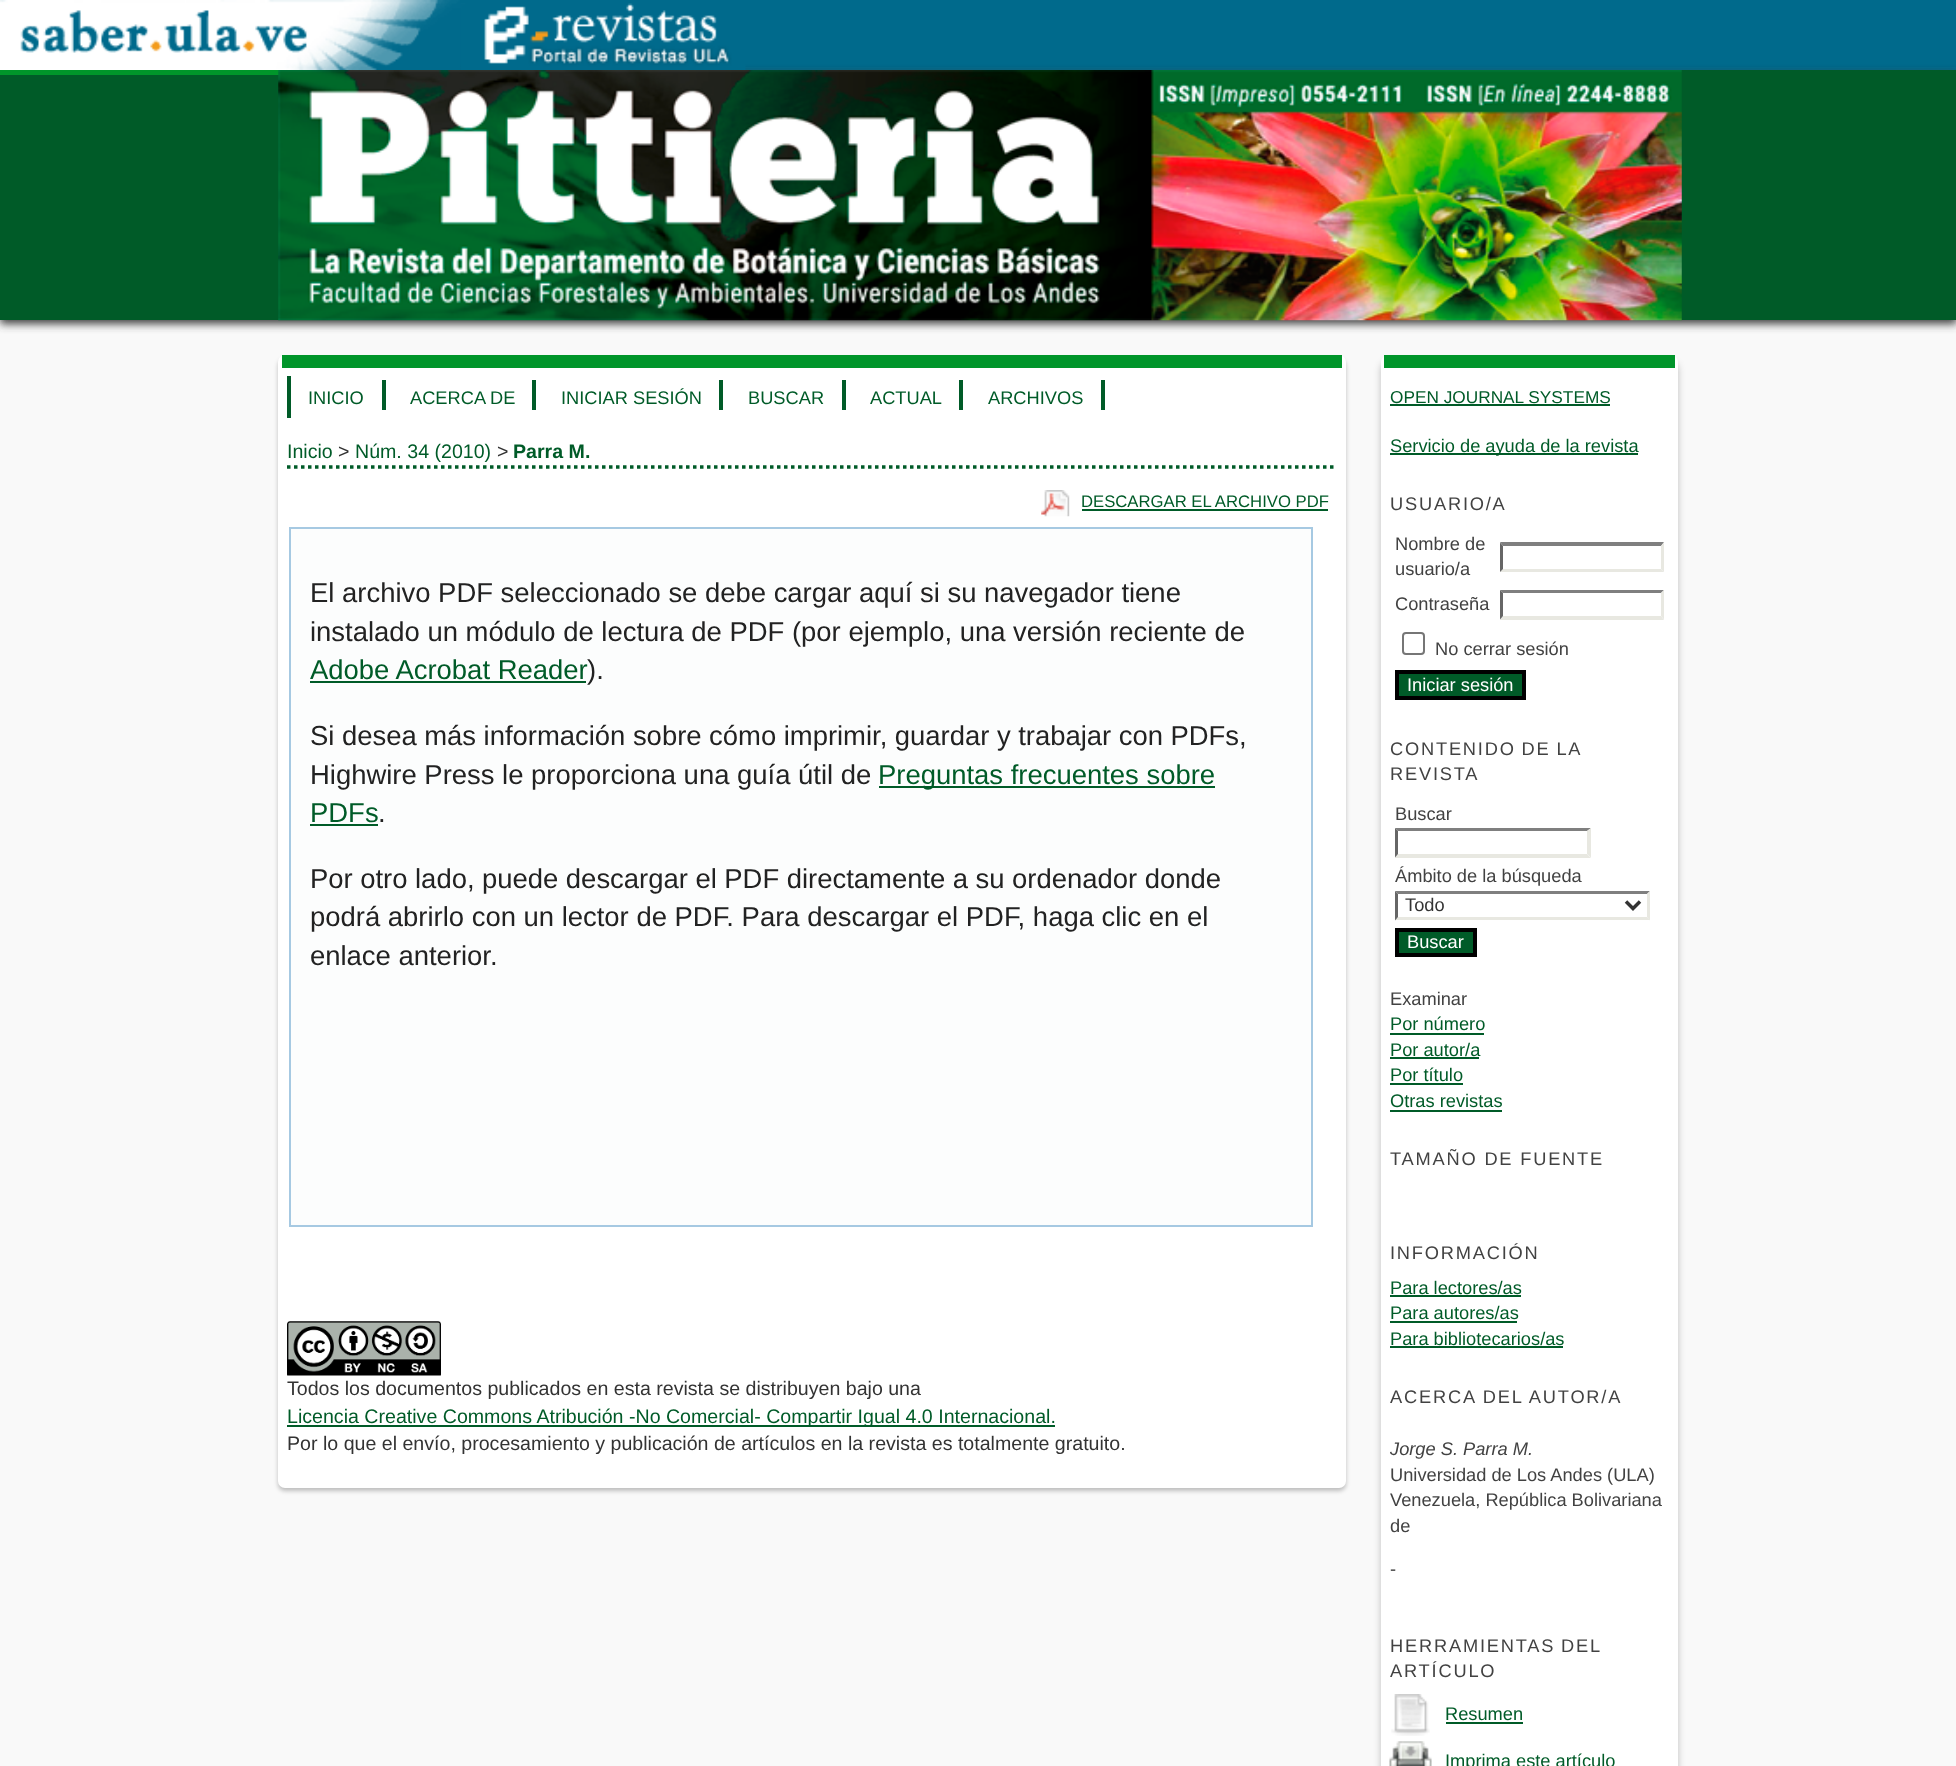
<?xml version="1.0" encoding="UTF-8"?>
<svg xmlns="http://www.w3.org/2000/svg" width="1956" height="1766">
    <defs>
        <filter id="blur1" x="-50%" y="-200%" width="200%" height="500%"><feGaussianBlur stdDeviation="4.5"/></filter>
        <filter id="blur2" x="-50%" y="-200%" width="200%" height="500%"><feGaussianBlur stdDeviation="2"/></filter>
        <filter id="blur3" x="-50%" y="-200%" width="200%" height="500%"><feGaussianBlur stdDeviation="3.5"/></filter>
    </defs>
    <rect width="100%" height="100%" fill="#F9F9F9"/>
    <rect x="460" y="0" width="1496" height="70" fill="#006A8C"/>
    <rect x="0" y="74" width="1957" height="250" fill="#424242" filter="url(#blur1)"/>
    <image x="0" y="0" width="460" height="70" href="img_01.png"/>
    <image x="460" y="3" width="286" height="67" href="img_02.png"/>
    <rect x="0" y="70" width="1956" height="250" fill="#005B28"/>
    <rect x="0" y="70" width="279" height="5" fill="#00952A"/>
    <image x="278" y="70" width="1404" height="251" href="img_03.png"/>
    <rect x="278" y="359" width="1068" height="1132" rx="7" fill="#000000" fill-opacity="0.24" filter="url(#blur2)"/>
    <rect x="278" y="355" width="1068" height="1133" rx="7" fill="#FFFFFF"/>
    <rect x="282" y="355" width="1060" height="13" fill="#00952A"/>
    <rect x="287" y="376" width="4" height="42" fill="#005B28"/>
    <text x="308" y="404" font-family="Liberation Sans" font-size="18.25" fill="#005B28">INICIO</text>
    <rect x="382" y="380" width="4" height="30" fill="#005B28"/>
    <text x="410" y="404" font-family="Liberation Sans" font-size="18.25" fill="#005B28">ACERCA DE</text>
    <rect x="532" y="380" width="4" height="30" fill="#005B28"/>
    <text x="561" y="404" font-family="Liberation Sans" font-size="18.25" fill="#005B28">INICIAR SESIÓN</text>
    <rect x="719" y="380" width="4" height="30" fill="#005B28"/>
    <text x="748" y="404" font-family="Liberation Sans" font-size="18.25" fill="#005B28">BUSCAR</text>
    <rect x="842" y="380" width="4" height="30" fill="#005B28"/>
    <text x="870" y="404" font-family="Liberation Sans" font-size="18.25" fill="#005B28">ACTUAL</text>
    <rect x="959" y="380" width="4" height="30" fill="#005B28"/>
    <text x="988" y="404" font-family="Liberation Sans" font-size="18.25" fill="#005B28">ARCHIVOS</text>
    <rect x="1101" y="380" width="4" height="30" fill="#005B28"/>
    <text x="287" y="458" font-family="Liberation Sans" font-size="19.6" fill="#005B28">Inicio</text>
    <text x="338" y="458" font-family="Liberation Sans" font-size="19.6" fill="#333333">&gt;</text>
    <text x="355" y="458" font-family="Liberation Sans" font-size="19.6" fill="#005B28">Núm. 34 (2010)</text>
    <text x="497" y="458" font-family="Liberation Sans" font-size="19.6" fill="#333333">&gt;</text>
    <text x="513" y="458" font-family="Liberation Sans" font-size="19.6" font-weight="700" fill="#005B28">Parra M.</text>
    <path d="M 287 467 H 1337" fill="none" stroke="#005B28" stroke-width="3.5" stroke-dasharray="3.5 3.5"/>
    <image x="1041" y="490" width="29" height="27" href="img_04.png"/>
    <text x="1081" y="507" font-family="Liberation Sans" font-size="16.7" fill="#005B28">DESCARGAR EL ARCHIVO PDF</text>
    <rect x="1082" y="509" width="246" height="2" fill="#005B28"/>
    <rect x="290" y="528" width="1022" height="698" fill="#FCFDFD" stroke="#A6C9E2" stroke-width="2"/>
    <text font-family="Liberation Sans" font-size="27.45" fill="#222222">
        <tspan x="310" y="602">El archivo PDF seleccionado se debe cargar aquí si su navegador tiene</tspan>
        <tspan x="310" y="641">instalado un módulo de lectura de PDF (por ejemplo, una versión reciente de</tspan>
    </text>
    <text x="310" y="679" font-family="Liberation Sans" font-size="27.45" fill="#005B28">Adobe Acrobat Reader</text>
    <rect x="310" y="681" width="276" height="2" fill="#005B28"/>
    <text x="587" y="679" font-family="Liberation Sans" font-size="27.45" fill="#222222">).</text>
    <text font-family="Liberation Sans" font-size="27.45" fill="#222222">
        <tspan x="310" y="745" word-spacing="-0.1">Si desea más información sobre cómo imprimir, guardar y trabajar con PDFs,</tspan>
        <tspan x="310" y="784">Highwire Press le proporciona una guía útil de</tspan>
    </text>
    <rect x="879" y="786" width="336" height="2" fill="#005B28"/>
    <text x="878" y="784" font-family="Liberation Sans" font-size="27.45" fill="#005B28">Preguntas frecuentes sobre</text>
    <text x="310" y="822" font-family="Liberation Sans" font-size="27.45" fill="#005B28">PDFs</text>
    <rect x="310" y="824" width="68" height="2" fill="#005B28"/>
    <text x="378" y="822" font-family="Liberation Sans" font-size="27.45" fill="#222222">.</text>
    <text font-family="Liberation Sans" font-size="27.45" fill="#222222">
        <tspan x="310" y="888" word-spacing="-0.1">Por otro lado, puede descargar el PDF directamente a su ordenador donde</tspan>
        <tspan x="310" y="926">podrá abrirlo con un lector de PDF. Para descargar el PDF, haga clic en el</tspan>
        <tspan x="310" y="965">enlace anterior.</tspan>
    </text>
    <image x="287" y="1321" width="154" height="55" href="img_05.png"/>
    <text x="287" y="1395" font-family="Liberation Sans" font-size="19.6" fill="#333333">Todos los documentos publicados en esta revista se distribuyen bajo una</text>
    <rect x="287" y="1425" width="768" height="2" fill="#005B28"/>
    <text x="287" y="1423" font-family="Liberation Sans" font-size="19.6" fill="#005B28">Licencia Creative Commons Atribución -No Comercial- Compartir Igual 4.0 Internacional.</text>
    <text x="287" y="1450" font-family="Liberation Sans" font-size="19.6" fill="#333333">Por lo que el envío, procesamiento y publicación de artículos en la revista es totalmente gratuito.</text>
    <rect x="1381" y="362" width="297" height="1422" rx="7" fill="#000000" fill-opacity="0.24" filter="url(#blur3)"/>
    <rect x="1381" y="355" width="297" height="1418" rx="7" fill="#FFFFFF"/>
    <rect x="1384" y="355" width="291" height="13" fill="#00952A"/>
    <text x="1390" y="403" font-family="Liberation Sans" font-size="17.25" fill="#005B28">OPEN JOURNAL SYSTEMS</text>
    <rect x="1390" y="404" width="220" height="2" fill="#005B28"/>
    <rect x="1390" y="453" width="248" height="2" fill="#005B28"/>
    <text x="1390" y="452" font-family="Liberation Sans" font-size="18.25" fill="#005B28">Servicio de ayuda de la revista</text>
    <text x="1390" y="510" font-family="Liberation Sans" font-size="18.25" letter-spacing="1.8" fill="#424242">USUARIO/A</text>
    <text font-family="Liberation Sans" font-size="18.25" fill="#424242">
        <tspan x="1395" y="550">Nombre de</tspan>
        <tspan x="1395" y="575">usuario/a</tspan>
    </text>
    <path d="M 1500 542 H 1664 L 1661 546 H 1503 Z" fill="#7F7F7F"/>
    <path d="M 1664 542.5 V 572 L 1661 569 V 546 Z" fill="#E8E8E1"/>
    <path d="M 1664 572 H 1500 L 1503 569 H 1661 Z" fill="#E8E8E1"/>
    <path d="M 1500 572 V 542.5 L 1503 546 V 569 Z" fill="#666666"/>
    <text x="1395" y="610" font-family="Liberation Sans" font-size="18.25" fill="#424242">Contraseña</text>
    <path d="M 1500 590 H 1664 L 1661 593 H 1503 Z" fill="#7F7F7F"/>
    <path d="M 1664 590 V 619.5 L 1661 616 V 593 Z" fill="#E8E8E1"/>
    <path d="M 1664 620 H 1500 L 1503 616 H 1661 Z" fill="#E8E8E1"/>
    <path d="M 1500 619.5 V 590 L 1503 593 V 616 Z" fill="#666666"/>
    <rect x="1403" y="633" width="21" height="21" rx="3" fill="none" stroke="#767676" stroke-width="2"/>
    <text x="1435" y="655" font-family="Liberation Sans" font-size="18.25" fill="#424242">No cerrar sesión</text>
    <rect x="1397" y="672" width="127" height="26" fill="#005B28" stroke="#000000" stroke-width="4"/>
    <text x="1407" y="691" font-family="Liberation Sans" font-size="18.25" fill="#FFFFFF">Iniciar sesión</text>
    <text font-family="Liberation Sans" font-size="18.25" letter-spacing="1.8" fill="#424242">
        <tspan x="1390" y="755" word-spacing="-1">CONTENIDO DE LA</tspan>
        <tspan x="1390" y="780">REVISTA</tspan>
    </text>
    <text x="1395" y="820" font-family="Liberation Sans" font-size="18.25" fill="#424242">Buscar</text>
    <path d="M 1395 828 H 1591 L 1587 831 H 1398 Z" fill="#7F7F7F"/>
    <path d="M 1591 828 V 857.5 L 1587 854 V 831 Z" fill="#E8E8E1"/>
    <path d="M 1591 858 H 1395 L 1398 854 H 1587 Z" fill="#E8E8E1"/>
    <path d="M 1395 857.5 V 828 L 1398 831 V 854 Z" fill="#666666"/>
    <text x="1395" y="882" font-family="Liberation Sans" font-size="18.25" fill="#424242">Ámbito de la búsqueda</text>
    <path d="M 1395 891 H 1650 L 1647 894 H 1398 Z" fill="#7F7F7F"/>
    <path d="M 1650 891 V 920.5 L 1647 917 V 894 Z" fill="#E8E8E1"/>
    <path d="M 1650 920 H 1395 L 1398 917 H 1647 Z" fill="#E8E8E1"/>
    <path d="M 1395 920.5 V 891 L 1398 894 V 917 Z" fill="#666666"/>
    <path d="M 1626 901.5 L 1633 908.5 L 1640 901.5" fill="none" stroke="#333333" stroke-width="3.5"/>
    <text x="1405" y="911" font-family="Liberation Sans" font-size="18.25" fill="#333333">Todo</text>
    <rect x="1397" y="930" width="78" height="25" fill="#005B28" stroke="#000000" stroke-width="4"/>
    <text x="1407" y="948" font-family="Liberation Sans" font-size="18.25" fill="#FFFFFF">Buscar</text>
    <text x="1390" y="1005" font-family="Liberation Sans" font-size="18.25" fill="#424242">Examinar</text>
    <text x="1390" y="1030" font-family="Liberation Sans" font-size="18.25" fill="#005B28">Por número</text>
    <rect x="1390" y="1033" width="94" height="2" fill="#005B28"/>
    <text x="1390" y="1056" font-family="Liberation Sans" font-size="18.25" fill="#005B28">Por autor/a</text>
    <rect x="1390" y="1057" width="89" height="2" fill="#005B28"/>
    <text x="1390" y="1081" font-family="Liberation Sans" font-size="18.25" fill="#005B28">Por título</text>
    <rect x="1390" y="1083" width="73" height="2" fill="#005B28"/>
    <text x="1390" y="1107" font-family="Liberation Sans" font-size="18.25" fill="#005B28">Otras revistas</text>
    <rect x="1390" y="1110" width="112" height="2" fill="#005B28"/>
    <text x="1390" y="1165" font-family="Liberation Sans" font-size="18.25" letter-spacing="1.8" fill="#424242">TAMAÑO DE FUENTE</text>
    <text x="1390" y="1259" font-family="Liberation Sans" font-size="18.25" letter-spacing="1.8" fill="#424242">INFORMACIÓN</text>
    <text x="1390" y="1294" font-family="Liberation Sans" font-size="18.25" fill="#005B28">Para lectores/as</text>
    <rect x="1390" y="1295" width="131" height="2" fill="#005B28"/>
    <text x="1390" y="1319" font-family="Liberation Sans" font-size="18.25" fill="#005B28">Para autores/as</text>
    <rect x="1390" y="1321" width="127" height="2" fill="#005B28"/>
    <text x="1390" y="1345" font-family="Liberation Sans" font-size="18.25" fill="#005B28">Para bibliotecarios/as</text>
    <rect x="1390" y="1346" width="173" height="2" fill="#005B28"/>
    <text x="1390" y="1403" font-family="Liberation Sans" font-size="18.25" letter-spacing="1.8" fill="#424242">ACERCA DEL AUTOR/A</text>
    <text x="1390" y="1455" font-family="Liberation Sans" font-size="18.25" font-style="italic" fill="#424242">Jorge S. Parra M.</text>
    <text font-family="Liberation Sans" font-size="18.25" fill="#424242">
        <tspan x="1390" y="1481">Universidad de Los Andes (ULA)</tspan>
        <tspan x="1390" y="1506">Venezuela, República Bolivariana</tspan>
        <tspan x="1390" y="1532">de</tspan>
    </text>
    <text x="1390" y="1575" font-family="Liberation Sans" font-size="18.25" fill="#424242">-</text>
    <text font-family="Liberation Sans" font-size="18.25" letter-spacing="1.8" fill="#424242">
        <tspan x="1390" y="1652" word-spacing="-1">HERRAMIENTAS DEL</tspan>
        <tspan x="1390" y="1677">ARTÍCULO</tspan>
    </text>
    <image x="1391" y="1694" width="39" height="42" href="img_06.png"/>
    <text x="1445" y="1720" font-family="Liberation Sans" font-size="18.25" fill="#005B28">Resumen</text>
    <rect x="1446" y="1722" width="77" height="2" fill="#005B28"/>
    <image x="1389" y="1741" width="43" height="25" href="img_07.png"/>
    <text x="1445" y="1767" font-family="Liberation Sans" font-size="18.25" fill="#005B28">Imprima este artículo</text>
</svg>
